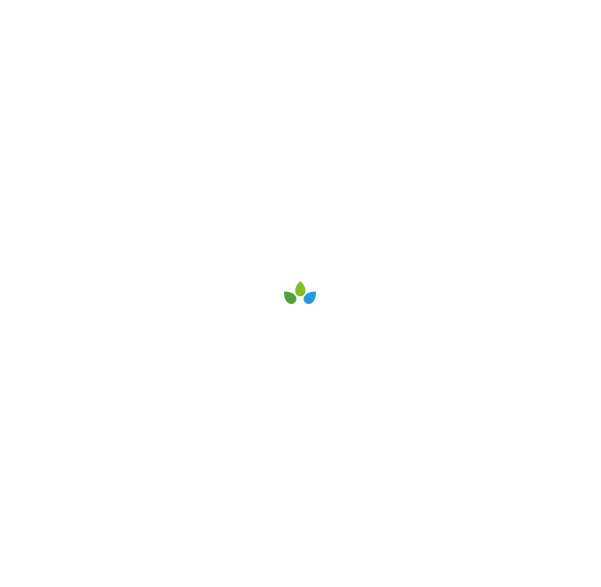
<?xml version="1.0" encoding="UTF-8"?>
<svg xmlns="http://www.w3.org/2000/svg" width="601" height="587">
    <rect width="100%" height="100%" fill="#FFFFFF"/>
    <image x="284" y="281" width="32" height="23" href="img_01.png"/>
</svg>
